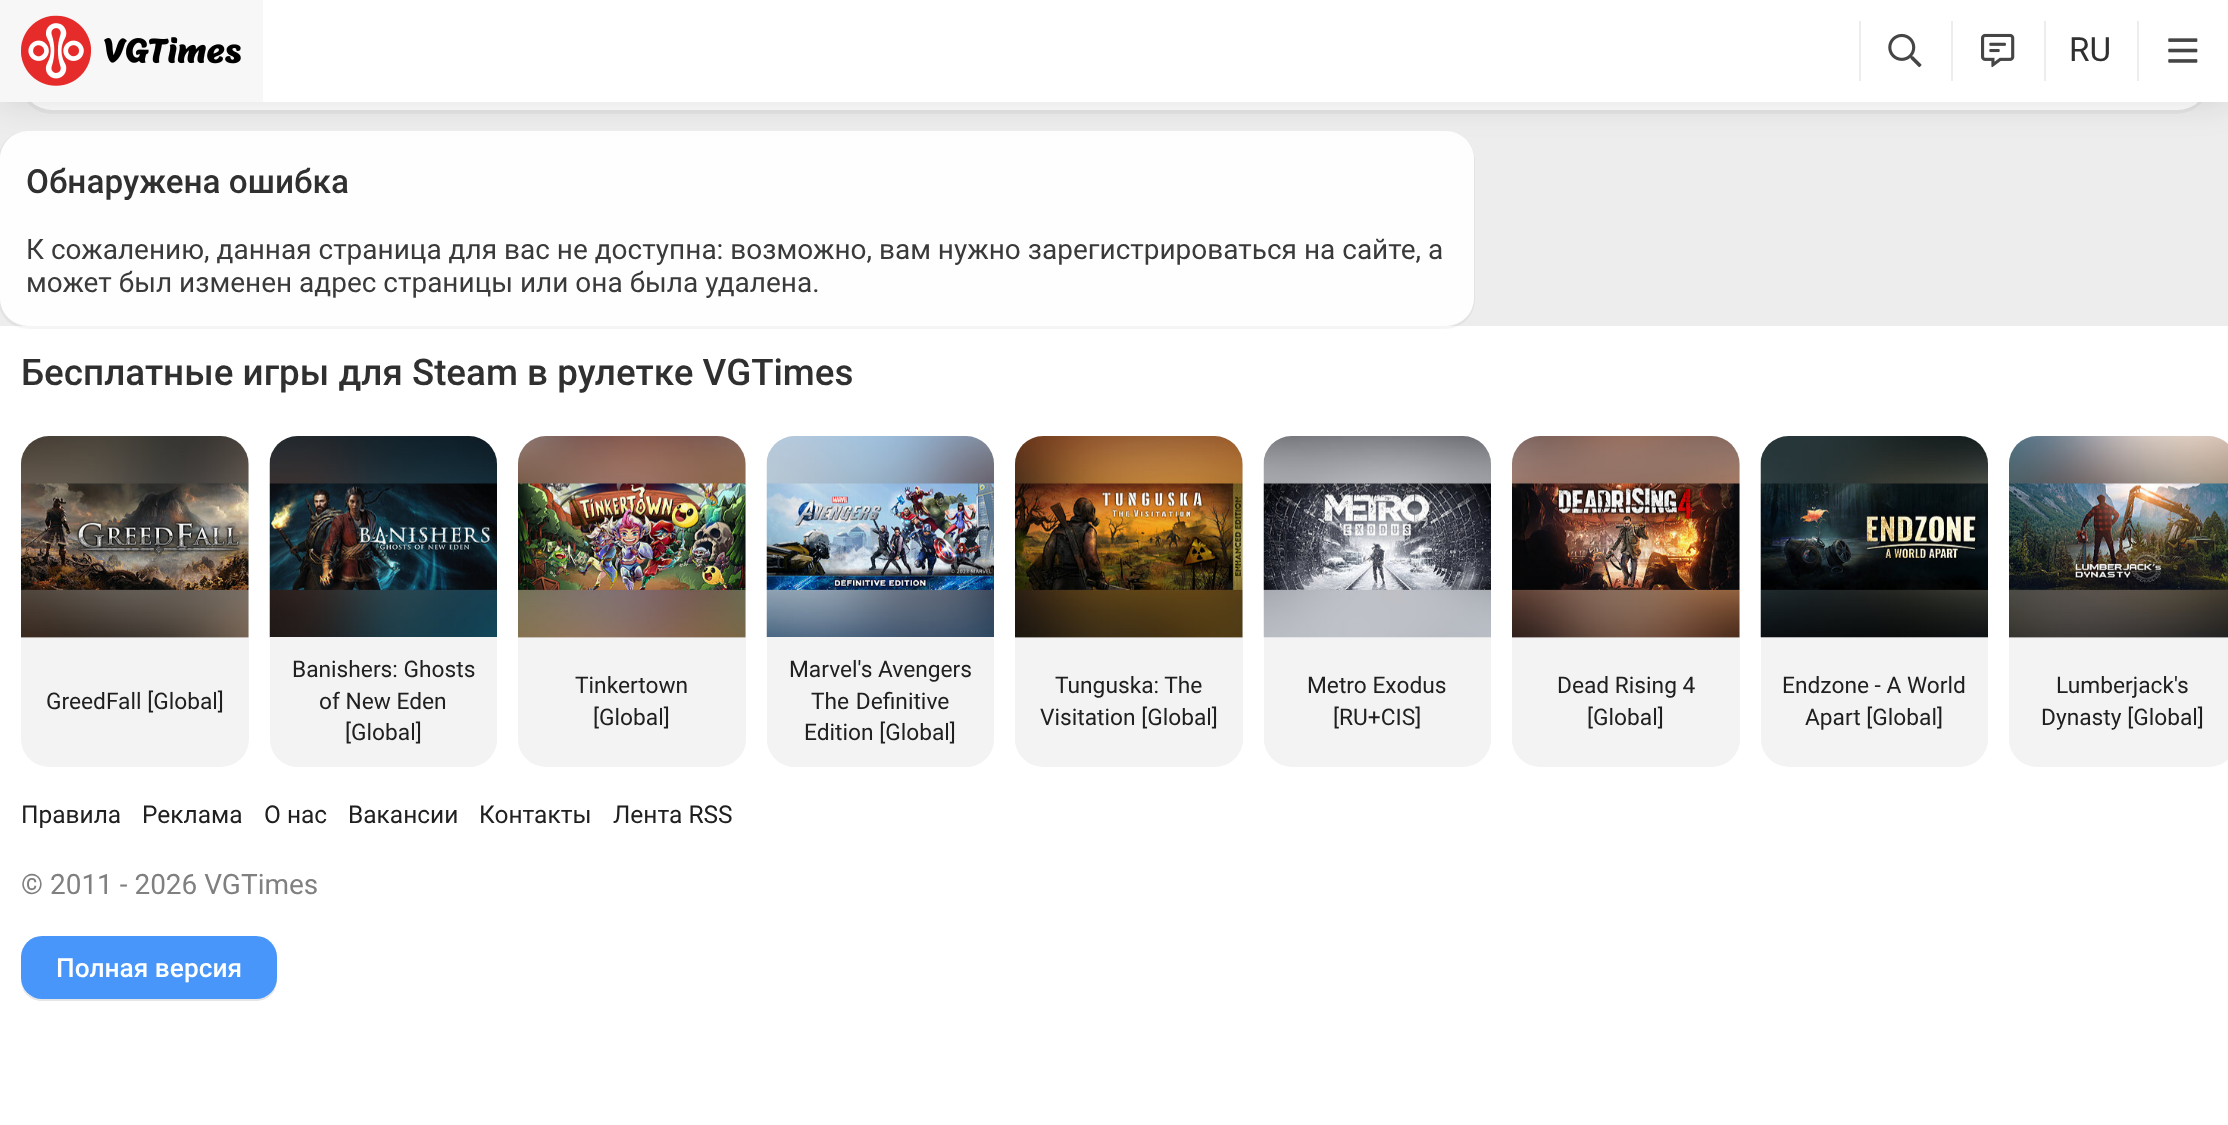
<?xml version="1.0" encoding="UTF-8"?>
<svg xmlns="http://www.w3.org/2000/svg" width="2228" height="1125">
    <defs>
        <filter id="blur1" x="-50%" y="-200%" width="200%" height="500%"><feGaussianBlur stdDeviation="17.5"/></filter>
        <clipPath id="clip1"><rect x="518" y="436" width="228" height="331" rx="28"/></clipPath>
        <clipPath id="clip2"><rect x="1015" y="436" width="228" height="331" rx="28"/></clipPath>
        <clipPath id="clip3"><rect x="1264" y="436" width="227" height="331" rx="28"/></clipPath>
        <clipPath id="clip4"><rect x="1512" y="436" width="228" height="331" rx="28"/></clipPath>
        <clipPath id="clip5"><rect x="1761" y="436" width="227" height="331" rx="28"/></clipPath>
        <clipPath id="clip6"><rect x="2009" y="436" width="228" height="331" rx="28"/></clipPath>
    </defs>
    <rect width="100%" height="100%" fill="#EDEDED"/>
    <path d="M 52 47 C 34 47 19 62 19 80 C 19 99 34 114 52 114 H 2176 C 2195 114 2210 99 2210 80 C 2210 62 2195 47 2176 47 Z M 52 47 C 35 47 21 61 21 79 C 21 96 35 110 52 110 H 2177 C 2194 110 2208 96 2208 79 C 2208 61 2194 47 2177 47 Z" fill="#E4E4E4" fill-rule="evenodd"/>
    <rect x="21" y="47" width="2188" height="63" rx="31.5" fill="#FEFEFE"/>
    <rect x="0" y="326" width="2228" height="799" fill="#FFFFFF"/>
    <path d="M 28 131 C 11 131 -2 144 -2 161 V 299 C -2 316 11 329 28 329 H 1445 C 1462 329 1475 316 1475 299 V 161 C 1475 144 1462 131 1445 131 Z M 28 131 C 13 131 0 144 0 159 V 298 C 0 313 13 326 28 326 H 1446 C 1461 326 1474 313 1474 298 V 159 C 1474 144 1461 131 1446 131 Z" fill="#000000" fill-opacity="0.04" fill-rule="evenodd"/>
    <rect x="0" y="131" width="1474" height="195" rx="28" fill="#FEFEFE"/>
    <rect x="0" y="0" width="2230" height="102" fill="#292929" fill-opacity="0.13" filter="url(#blur1)"/>
    <rect x="263" y="0" width="1965" height="102" fill="#FFFFFF"/>
    <rect x="0" y="0" width="263" height="102" fill="#F7F7F7"/>
    <image x="28" y="23" width="56" height="55" href="img_02.png"/>
    <image x="21" y="15" width="71" height="71" href="img_01.png"/>
    <image x="104" y="37" width="137" height="27" href="img_03.png"/>
    <rect x="1859" y="21" width="2" height="60" fill="#EDEDED"/>
    <image x="1888" y="33" width="34" height="35" href="img_04.png"/>
    <rect x="1951" y="21" width="2" height="60" fill="#EDEDED"/>
    <image x="1981" y="33" width="34" height="35" href="img_05.png"/>
    <rect x="2044" y="21" width="2" height="60" fill="#EDEDED"/>
    <text x="2069" y="61" font-family="Roboto" font-size="33.25" fill="#303030">RU</text>
    <rect x="2137" y="21" width="2" height="60" fill="#EDEDED"/>
    <image x="2168" y="38" width="30" height="25" href="img_06.png"/>
    <text x="26" y="193" font-family="Roboto" font-size="33.25" font-weight="500" fill="#303030">Обнаружена ошибка</text>
    <text font-family="Roboto" font-size="28" fill="#3A3A3A">
        <tspan x="26" y="259">К сожалению, данная страница для вас не доступна: возможно, вам нужно зарегистрироваться на сайте, а</tspan>
        <tspan x="26" y="292">может был изменен адрес страницы или она была удалена.</tspan>
    </text>
    <text x="21" y="385" font-family="Roboto" font-size="36.75" font-weight="500" fill="#303030">Бесплатные игры для Steam в рулетке VGTimes</text>
    <rect x="21" y="436" width="228" height="331" rx="28" fill="#F3F3F3"/>
    <image x="21" y="436" width="228" height="202" href="img_07.png"/>
    <text x="46" y="709" font-family="Roboto" font-size="22.75" fill="#202020">GreedFall [Global]</text>
    <rect x="270" y="436" width="227" height="331" rx="28" fill="#F3F3F3"/>
    <image x="269" y="436" width="228" height="202" href="img_08.png"/>
    <path d="M 270 637 H 497 V 739 C 497 754.5 484.5 767 469 767 H 298 C 282.5 767 270 754.5 270 739 Z" fill="#F3F3F3"/>
    <text x="292" y="677" font-family="Roboto" font-size="22.75" fill="#202020">Banishers: Ghosts</text>
    <text x="319" y="709" font-family="Roboto" font-size="22.75" fill="#202020">of New Eden</text>
    <text x="345" y="740" font-family="Roboto" font-size="22.75" fill="#202020">[Global]</text>
    <rect x="518" y="436" width="228" height="331" rx="28" fill="#F3F3F3"/>
    <image x="518" y="436" width="228" height="202" href="img_09.png"/>
    <g clip-path="url(#clip1)">
        <rect x="518" y="653" width="228" height="98" fill="#F3F3F3"/>
    </g>
    <text x="575" y="693" font-family="Roboto" font-size="22.75" fill="#202020">Tinkertown</text>
    <text x="593" y="725" font-family="Roboto" font-size="22.75" fill="#202020">[Global]</text>
    <rect x="767" y="436" width="227" height="331" rx="28" fill="#F3F3F3"/>
    <image x="766" y="436" width="228" height="202" href="img_10.png"/>
    <path d="M 767 637 H 994 V 739 C 994 754.5 981.5 767 966 767 H 795 C 779.5 767 767 754.5 767 739 Z" fill="#F3F3F3"/>
    <text x="789" y="677" font-family="Roboto" font-size="22.75" fill="#202020">Marvel's Avengers</text>
    <text x="811" y="709" word-spacing="1" font-family="Roboto" font-size="22.75" fill="#202020">The Definitive</text>
    <text x="804" y="740" font-family="Roboto" font-size="22.75" fill="#202020">Edition [Global]</text>
    <rect x="1015" y="436" width="228" height="331" rx="28" fill="#F3F3F3"/>
    <image x="1015" y="436" width="228" height="202" href="img_11.png"/>
    <g clip-path="url(#clip2)">
        <rect x="1015" y="653" width="228" height="98" fill="#F3F3F3"/>
    </g>
    <text x="1055" y="693" font-family="Roboto" font-size="22.75" fill="#202020">Tunguska: The</text>
    <text x="1040" y="725" font-family="Roboto" font-size="22.75" fill="#202020">Visitation [Global]</text>
    <rect x="1264" y="436" width="227" height="331" rx="28" fill="#F3F3F3"/>
    <image x="1263" y="436" width="228" height="202" href="img_12.png"/>
    <g clip-path="url(#clip3)">
        <rect x="1264" y="653" width="227" height="98" fill="#F3F3F3"/>
    </g>
    <text x="1307" y="693" font-family="Roboto" font-size="22.75" fill="#202020">Metro Exodus</text>
    <text x="1333" y="725" font-family="Roboto" font-size="22.75" fill="#202020">[RU+CIS]</text>
    <rect x="1512" y="436" width="228" height="331" rx="28" fill="#F3F3F3"/>
    <image x="1512" y="436" width="228" height="202" href="img_13.png"/>
    <g clip-path="url(#clip4)">
        <rect x="1512" y="653" width="228" height="98" fill="#F3F3F3"/>
    </g>
    <text x="1557" y="693" font-family="Roboto" font-size="22.75" fill="#202020">Dead Rising 4</text>
    <text x="1587" y="725" font-family="Roboto" font-size="22.75" fill="#202020">[Global]</text>
    <rect x="1761" y="436" width="227" height="331" rx="28" fill="#F3F3F3"/>
    <image x="1760" y="436" width="228" height="202" href="img_14.png"/>
    <g clip-path="url(#clip5)">
        <rect x="1761" y="653" width="227" height="98" fill="#F3F3F3"/>
    </g>
    <text x="1782" y="693" font-family="Roboto" font-size="22.75" fill="#202020">Endzone - A World</text>
    <text x="1805" y="725" font-family="Roboto" font-size="22.75" fill="#202020">Apart [Global]</text>
    <rect x="2009" y="436" width="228" height="331" rx="28" fill="#F3F3F3"/>
    <image x="2009" y="436" width="219" height="202" href="img_15.png"/>
    <g clip-path="url(#clip6)">
        <rect x="2009" y="653" width="219" height="98" fill="#F3F3F3"/>
    </g>
    <text x="2056" y="693" font-family="Roboto" font-size="22.75" fill="#202020">Lumberjack's</text>
    <text x="2041" y="725" font-family="Roboto" font-size="22.75" fill="#202020">Dynasty [Global]</text>
    <text x="21" y="823" font-family="Roboto" font-size="24.5" fill="#202020">Правила</text>
    <text x="142" y="823" font-family="Roboto" font-size="24.5" fill="#202020">Реклама</text>
    <text x="264" y="823" font-family="Roboto" font-size="24.5" fill="#202020">О нас</text>
    <text x="348" y="823" font-family="Roboto" font-size="24.5" fill="#202020">Вакансии</text>
    <text x="479" y="823" font-family="Roboto" font-size="24.5" fill="#202020">Контакты</text>
    <text x="613" y="823" font-family="Roboto" font-size="24.5" fill="#202020">Лента RSS</text>
    <text x="21" y="894" font-family="Roboto" font-size="28" fill="#808080">© 2011 - 2026 VGTimes</text>
    <path d="M 21 978 V 980 C 21 992 30 1001 42 1001 H 256 C 268 1001 277 992 277 980 V 959 C 277 957 277 954 276 952 V 957 V 978 C 276 990 267 999 256 999 H 42 C 30 999 21 990 21 978 Z" fill="#E6E6E6"/>
    <rect x="21" y="936" width="256" height="63" rx="21" fill="#4896FA"/>
    <text x="56" y="977" font-family="Roboto" font-size="26.25" font-weight="500" fill="#FFFFFF">Полная версия</text>
</svg>
